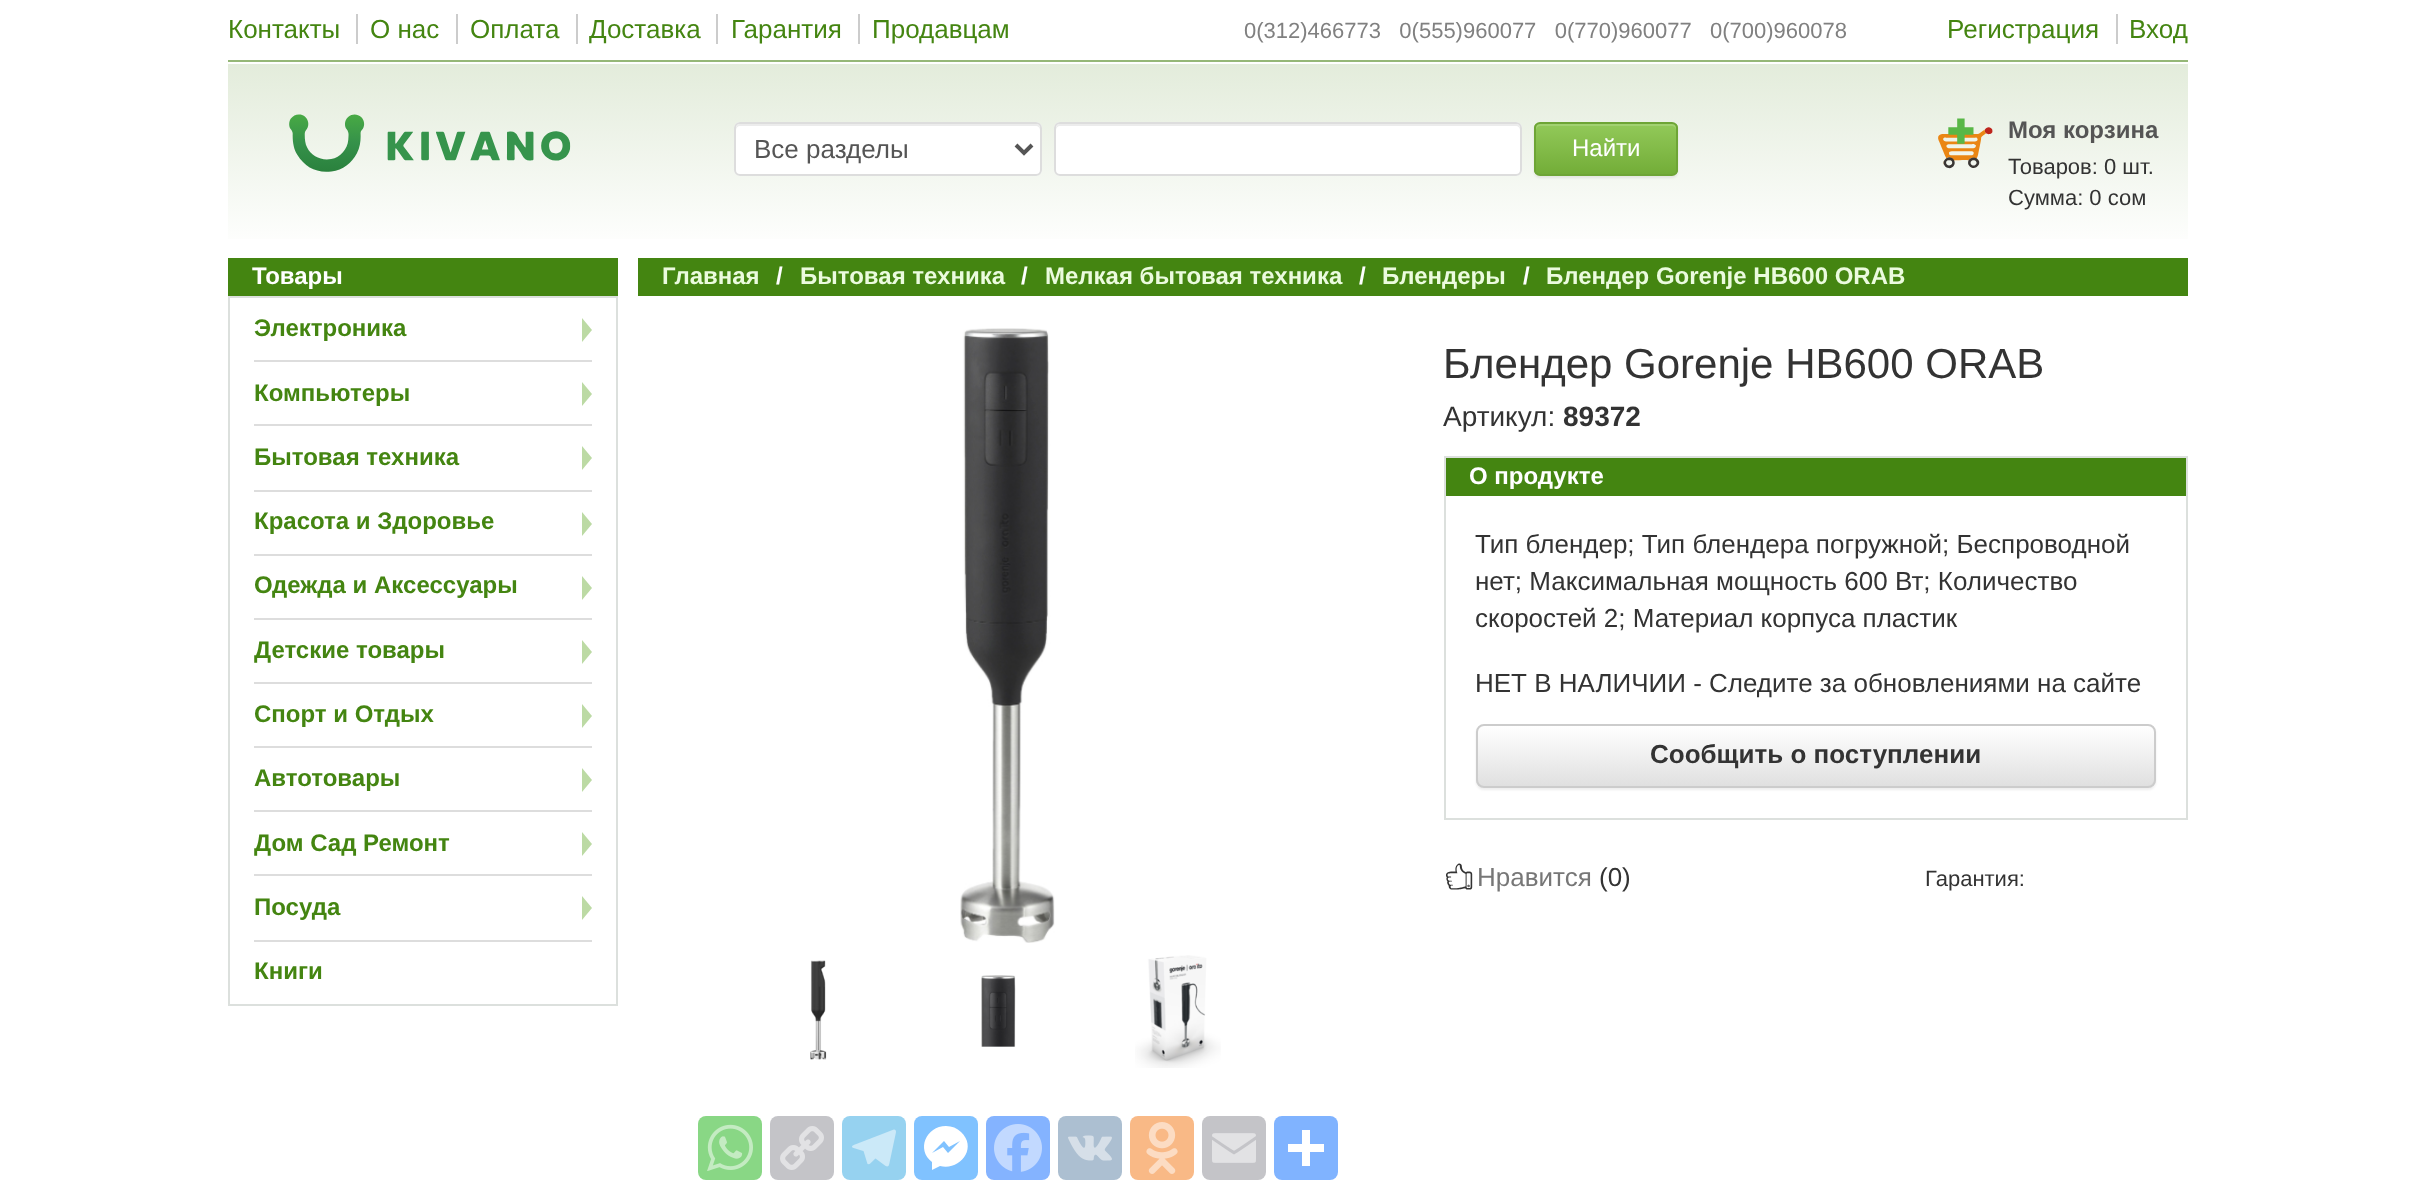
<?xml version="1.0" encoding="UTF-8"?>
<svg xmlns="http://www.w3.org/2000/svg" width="2416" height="1203">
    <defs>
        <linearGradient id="g1" gradientUnits="userSpaceOnUse" x1="1208" y1="64" x2="1208" y2="252"><stop offset="0" stop-color="#E3ECDB"/><stop offset="1" stop-color="#FFFFFF"/></linearGradient>
        <filter id="blur1" x="-50%" y="-200%" width="200%" height="500%"><feGaussianBlur stdDeviation="1"/></filter>
        <clipPath id="clip1"><rect x="1534" y="122" width="144" height="54" rx="6"/></clipPath>
        <linearGradient id="g2" gradientUnits="userSpaceOnUse" x1="1606" y1="124" x2="1606" y2="174"><stop offset="0" stop-color="#92C959"/><stop offset="1" stop-color="#73AD38"/></linearGradient>
        <clipPath id="clip2"><rect x="1476" y="724" width="680" height="64" rx="8"/></clipPath>
        <linearGradient id="g3" gradientUnits="userSpaceOnUse" x1="1816" y1="726" x2="1816" y2="786"><stop offset="0" stop-color="#FFFFFF"/><stop offset="1" stop-color="#E0E0E0"/></linearGradient>
    </defs>
    <rect width="100%" height="100%" fill="#FFFFFF"/>
    <rect x="228" y="60" width="1960" height="2" fill="#95B777"/>
    <text x="228" y="38" font-family="Liberation Sans" font-size="26" fill="#448511">Контакты</text>
    <rect x="356" y="14" width="2" height="30" fill="#CCCCCC"/>
    <text x="370" y="38" font-family="Liberation Sans" font-size="26" fill="#448511">О нас</text>
    <rect x="456" y="14" width="2" height="30" fill="#CCCCCC"/>
    <text x="470" y="38" font-family="Liberation Sans" font-size="26" fill="#448511">Оплата</text>
    <rect x="576" y="14" width="2" height="30" fill="#CCCCCC"/>
    <text x="589" y="38" font-family="Liberation Sans" font-size="26" fill="#448511">Доставка</text>
    <rect x="716" y="14" width="2" height="30" fill="#CCCCCC"/>
    <text x="731" y="38" font-family="Liberation Sans" font-size="26" fill="#448511">Гарантия</text>
    <rect x="858" y="14" width="2" height="30" fill="#CCCCCC"/>
    <text x="872" y="38" font-family="Liberation Sans" font-size="26" fill="#448511">Продавцам</text>
    <text x="1244" y="38" font-family="Liberation Sans" font-size="22" fill="#808080" xml:space="preserve">0(312)466773   0(555)960077   0(770)960077   0(700)960078</text>
    <text x="1947" y="38" font-family="Liberation Sans" font-size="26" fill="#448511">Регистрация</text>
    <rect x="2116" y="14" width="2" height="30" fill="#CCCCCC"/>
    <text x="2129" y="38" font-family="Liberation Sans" font-size="26" fill="#448511">Вход</text>
    <rect x="228" y="64" width="1960" height="175" fill="url(#g1)"/>
    <image x="289" y="114" width="282" height="58" href="img_01.png"/>
    <rect x="734" y="122" width="308" height="54" rx="6" fill="#FFFFFF"/>
    <path d="M 740 126 H 1036 C 1038 126 1040 128 1040 130 V 128 C 1040 126 1038 124 1036 124 H 740 C 738 124 736 126 736 128 V 130 C 736 128 738 126 740 126 Z" fill="#ECECEC"/>
    <rect x="735" y="123" width="306" height="52" rx="5" fill="none" stroke="#DDDDDD" stroke-width="2"/>
    <path d="M 1016 145 L 1024 153 L 1032 145" fill="none" stroke="#555555" stroke-width="4"/>
    <text x="754" y="158" font-family="Liberation Sans" font-size="26" fill="#555555">Все разделы</text>
    <rect x="1054" y="122" width="468" height="54" rx="6" fill="#FFFFFF"/>
    <path d="M 1060 126 H 1516 C 1518 126 1520 128 1520 130 V 128 C 1520 126 1518 124 1516 124 H 1060 C 1058 124 1056 126 1056 128 V 130 C 1056 128 1058 126 1060 126 Z" fill="#ECECEC"/>
    <rect x="1055" y="123" width="466" height="52" rx="5" fill="none" stroke="#DDDDDD" stroke-width="2"/>
    <rect x="1534" y="124" width="144" height="54" rx="6" fill="#000000" fill-opacity="0.07" filter="url(#blur1)"/>
    <g clip-path="url(#clip1)">
        <rect x="1534" y="124" width="144" height="50" fill="url(#g2)"/>
    </g>
    <path d="M 1540 126 H 1672 C 1674 126 1676 128 1676 130 V 128 C 1676 126 1674 124 1672 124 H 1540 C 1538 124 1536 126 1536 128 V 130 C 1536 128 1538 126 1540 126 Z" fill="#A2D171"/>
    <rect x="1535" y="123" width="142" height="52" rx="5" fill="none" stroke="#6EA536" stroke-width="2"/>
    <text x="1572" y="156" font-family="Liberation Sans" font-size="24" fill="#FFFFFF">Найти</text>
    <image x="1938" y="118" width="55" height="51" href="img_02.png"/>
    <text x="2008" y="138" font-family="Liberation Sans" font-size="24" font-weight="700" fill="#555555">Моя корзина</text>
    <text font-family="Liberation Sans" font-size="22" fill="#333333">
        <tspan x="2008" y="174">Товаров: 0 шт.</tspan>
        <tspan x="2008" y="205">Сумма: 0 сом</tspan>
    </text>
    <rect x="228" y="258" width="390" height="38" fill="#448511"/>
    <text x="252" y="284" font-family="Liberation Sans" font-size="24" font-weight="700" fill="#FFFFFF">Товары</text>
    <rect x="229" y="297" width="388" height="708" fill="none" stroke="#DCE0DD" stroke-width="2"/>
    <rect x="254" y="360" width="338" height="2" fill="#DDDDDD"/>
    <text x="254" y="336" font-family="Liberation Sans" font-size="24" font-weight="700" fill="#448511">Электроника</text>
    <path d="M 582 342 V 318 L 592 330 Z" fill="#BCDAA4"/>
    <rect x="254" y="424" width="338" height="2" fill="#DDDDDD"/>
    <text x="254" y="401" font-family="Liberation Sans" font-size="24" font-weight="700" fill="#448511">Компьютеры</text>
    <path d="M 582 406 V 382 L 592 394 Z" fill="#BCDAA4"/>
    <rect x="254" y="490" width="338" height="2" fill="#DDDDDD"/>
    <text x="254" y="465" font-family="Liberation Sans" font-size="24" font-weight="700" fill="#448511">Бытовая техника</text>
    <path d="M 582 470 V 446 L 592 458 Z" fill="#BCDAA4"/>
    <rect x="254" y="554" width="338" height="2" fill="#DDDDDD"/>
    <text x="254" y="529" font-family="Liberation Sans" font-size="24" font-weight="700" fill="#448511">Красота и Здоровье</text>
    <path d="M 582 536 V 512 L 592 524 Z" fill="#BCDAA4"/>
    <rect x="254" y="618" width="338" height="2" fill="#DDDDDD"/>
    <text x="254" y="593" font-family="Liberation Sans" font-size="24" font-weight="700" fill="#448511">Одежда и Аксессуары</text>
    <path d="M 582 600 V 576 L 592 588 Z" fill="#BCDAA4"/>
    <rect x="254" y="682" width="338" height="2" fill="#DDDDDD"/>
    <text x="254" y="658" font-family="Liberation Sans" font-size="24" font-weight="700" fill="#448511">Детские товары</text>
    <path d="M 582 664 V 640 L 592 652 Z" fill="#BCDAA4"/>
    <rect x="254" y="746" width="338" height="2" fill="#DDDDDD"/>
    <text x="254" y="722" font-family="Liberation Sans" font-size="24" font-weight="700" fill="#448511">Спорт и Отдых</text>
    <path d="M 582 728 V 704 L 592 716 Z" fill="#BCDAA4"/>
    <rect x="254" y="810" width="338" height="2" fill="#DDDDDD"/>
    <text x="254" y="786" font-family="Liberation Sans" font-size="24" font-weight="700" fill="#448511">Автотовары</text>
    <path d="M 582 792 V 768 L 592 780 Z" fill="#BCDAA4"/>
    <rect x="254" y="874" width="338" height="2" fill="#DDDDDD"/>
    <text x="254" y="851" font-family="Liberation Sans" font-size="24" font-weight="700" fill="#448511">Дом Сад Ремонт</text>
    <path d="M 582 856 V 832 L 592 844 Z" fill="#BCDAA4"/>
    <rect x="254" y="940" width="338" height="2" fill="#DDDDDD"/>
    <text x="254" y="915" font-family="Liberation Sans" font-size="24" font-weight="700" fill="#448511">Посуда</text>
    <path d="M 582 920 V 896 L 592 908 Z" fill="#BCDAA4"/>
    <text x="254" y="979" font-family="Liberation Sans" font-size="24" font-weight="700" fill="#448511">Книги</text>
    <rect x="638" y="258" width="1550" height="38" fill="#448511"/>
    <text x="662" y="284" font-family="Liberation Sans" font-size="24" font-weight="700" fill="#EBFBDE">Главная</text>
    <text x="776" y="284" font-family="Liberation Sans" font-size="24" font-weight="700" fill="#FFFFFF">/</text>
    <text x="800" y="284" font-family="Liberation Sans" font-size="24" font-weight="700" fill="#EBFBDE">Бытовая техника</text>
    <text x="1021" y="284" font-family="Liberation Sans" font-size="24" font-weight="700" fill="#FFFFFF">/</text>
    <text x="1045" y="284" font-family="Liberation Sans" font-size="24" font-weight="700" fill="#EBFBDE">Мелкая бытовая техника</text>
    <text x="1359" y="284" font-family="Liberation Sans" font-size="24" font-weight="700" fill="#FFFFFF">/</text>
    <text x="1382" y="284" font-family="Liberation Sans" font-size="24" font-weight="700" fill="#EBFBDE">Блендеры</text>
    <text x="1523" y="284" font-family="Liberation Sans" font-size="24" font-weight="700" fill="#FFFFFF">/</text>
    <text x="1546" y="284" font-family="Liberation Sans" font-size="24" font-weight="700" fill="#EBFBDE">Блендер Gorenje HB600 ORAB</text>
    <image x="960" y="328" width="95" height="615" href="img_03.png"/>
    <image x="810" y="960" width="17" height="100" href="img_04.png"/>
    <image x="981" y="975" width="35" height="72" href="img_05.png"/>
    <image x="1135" y="955" width="86" height="113" href="img_06.png"/>
    <rect x="698" y="1116" width="64" height="64" rx="8" fill="#89D785"/>
    <image x="707" y="1124" width="46" height="47" href="img_07.png"/>
    <rect x="770" y="1116" width="64" height="64" rx="8" fill="#C4C4C8"/>
    <image x="780" y="1126" width="44" height="44" href="img_08.png"/>
    <rect x="842" y="1116" width="64" height="64" rx="8" fill="#96D2F0"/>
    <image x="852" y="1129" width="44" height="38" href="img_09.png"/>
    <rect x="914" y="1116" width="64" height="64" rx="8" fill="#80C2FF"/>
    <path d="M 946 1126 C 926 1126 916 1150 932 1162 V 1170 L 940 1166 C 960 1171 978 1148 961 1132 C 957 1128 952 1126 946 1126 M 948 1153 L 943 1147 L 932 1153 L 944 1141 L 949 1147 L 960 1141 Z" fill="#FFFFFF"/>
    <rect x="986" y="1116" width="64" height="64" rx="8" fill="#84B3FF"/>
    <image x="994" y="1124" width="48" height="48" href="img_10.png"/>
    <rect x="1058" y="1116" width="64" height="64" rx="8" fill="#ACBFD1"/>
    <image x="1068" y="1135" width="44" height="26" href="img_11.png"/>
    <rect x="1130" y="1116" width="64" height="64" rx="8" fill="#F9B986"/>
    <image x="1146" y="1122" width="32" height="52" href="img_12.png"/>
    <rect x="1202" y="1116" width="64" height="64" rx="8" fill="#C4C4C8"/>
    <image x="1212" y="1133" width="44" height="30" href="img_13.png"/>
    <rect x="1274" y="1116" width="64" height="64" rx="8" fill="#80B3FF"/>
    <rect x="1302" y="1130" width="8" height="36" fill="#FFFFFF"/>
    <rect x="1288" y="1144" width="36" height="8" fill="#FFFFFF"/>
    <text x="1443" y="378" font-family="Liberation Sans" font-size="42" fill="#333333">Блендер Gorenje HB600 ORAB</text>
    <text x="1443" y="426" font-family="Liberation Sans" font-size="28" fill="#333333">Артикул:</text>
    <text x="1563" y="426" font-family="Liberation Sans" font-size="28" font-weight="700" fill="#333333">89372</text>
    <rect x="1445" y="457" width="742" height="362" fill="none" stroke="#DCE0DD" stroke-width="2"/>
    <rect x="1446" y="458" width="740" height="38" fill="#448511"/>
    <text x="1469" y="484" font-family="Liberation Sans" font-size="24" font-weight="700" fill="#FFFFFF">О продукте</text>
    <text font-family="Liberation Sans" font-size="26" fill="#333333">
        <tspan x="1475" y="553">Тип блендер; Тип блендера погружной; Беспроводной</tspan>
        <tspan x="1475" y="590">нет; Максимальная мощность 600 Вт; Количество</tspan>
        <tspan x="1475" y="627">скоростей 2; Материал корпуса пластик</tspan>
    </text>
    <text x="1475" y="692" font-family="Liberation Sans" font-size="26" fill="#333333">НЕТ В НАЛИЧИИ - Следите за обновлениями на сайте</text>
    <rect x="1476" y="726" width="680" height="64" rx="8" fill="#000000" fill-opacity="0.07" filter="url(#blur1)"/>
    <g clip-path="url(#clip2)">
        <rect x="1476" y="726" width="680" height="60" fill="url(#g3)"/>
    </g>
    <rect x="1477" y="725" width="678" height="62" rx="7" fill="none" stroke="#CCCCCC" stroke-width="2"/>
    <text x="1650" y="763" font-family="Liberation Sans" font-size="26" font-weight="700" fill="#333333">Сообщить о поступлении</text>
    <image x="1446" y="863" width="27" height="27" href="img_14.png"/>
    <text x="1477" y="886" font-family="Liberation Sans" font-size="26" fill="#777777">Нравится</text>
    <text x="1599" y="886" font-family="Liberation Sans" font-size="26" fill="#333333">(0)</text>
    <text x="1925" y="886" font-family="Liberation Sans" font-size="22" fill="#333333">Гарантия:</text>
</svg>
